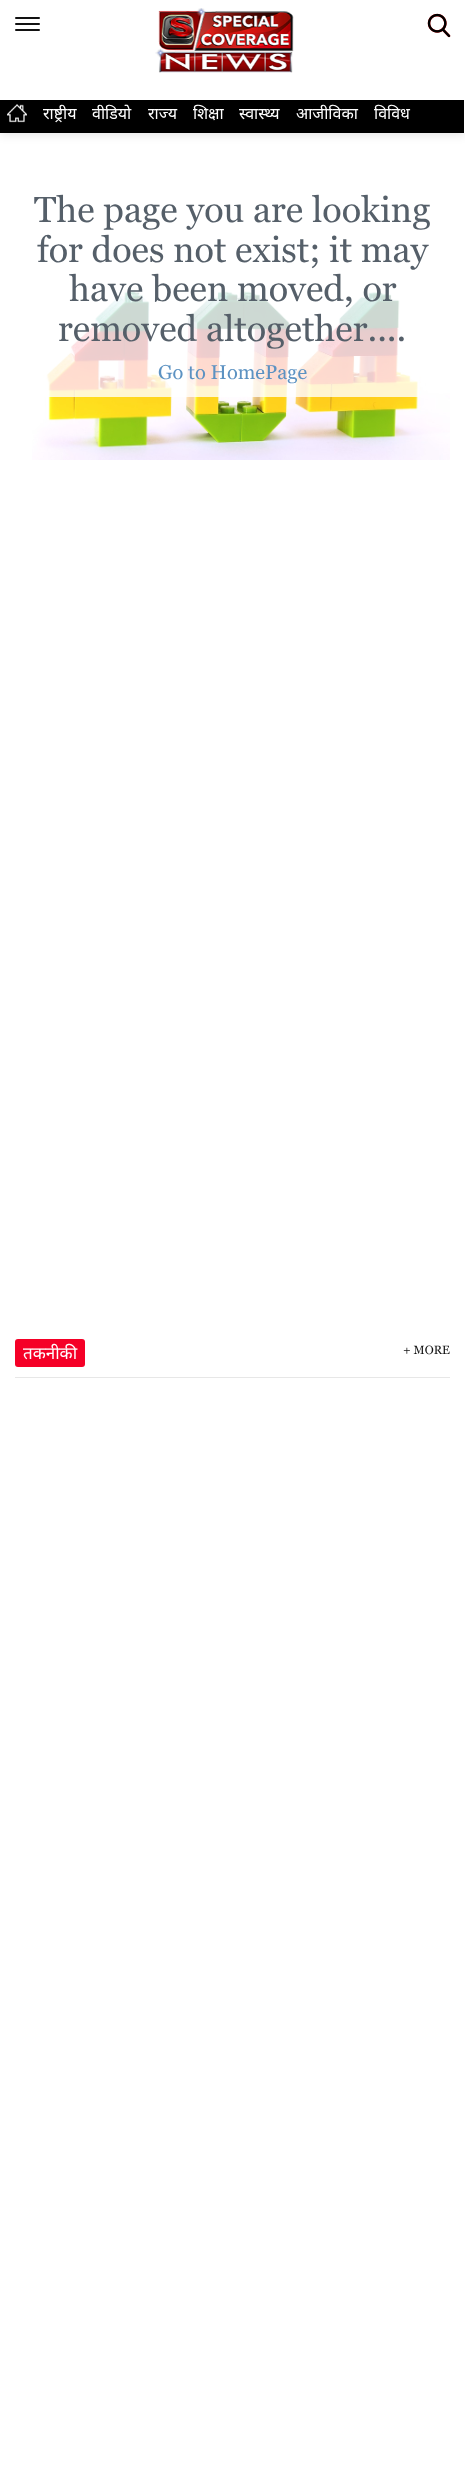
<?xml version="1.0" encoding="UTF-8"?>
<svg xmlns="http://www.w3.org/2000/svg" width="465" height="2487">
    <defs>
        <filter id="blur1" x="-50%" y="-200%" width="200%" height="500%"><feGaussianBlur stdDeviation="5"/></filter>
    </defs>
    <rect width="100%" height="100%" fill="#FFFFFF"/>
    <rect x="0" y="2" width="465" height="133" fill="#000000" fill-opacity="0.1" filter="url(#blur1)"/>
    <rect x="0" y="0" width="465" height="133" fill="#FFFFFF"/>
    <image x="155" y="8" width="139" height="65" href="img_01.png"/>
    <image x="427" y="13" width="24" height="25" href="img_02.png"/>
    <rect x="15" y="17" width="25" height="2" rx="1" fill="#121212"/>
    <rect x="15" y="23" width="25" height="2" rx="1" fill="#121212"/>
    <rect x="15" y="29" width="25" height="2" rx="1" fill="#121212"/>
    <image x="427" y="13" width="24" height="25" href="img_03.png"/>
    <rect x="0" y="100" width="464" height="33" fill="#000000"/>
    <image x="7" y="104" width="20" height="19" href="img_04.png"/>
    <text x="43" y="119" font-family="Noto Sans" font-size="16" fill="#FFFFFF">राष्ट्रीय</text>
    <text x="92" y="119" font-family="Noto Sans" font-size="16" fill="#FFFFFF">वीडियो</text>
    <text x="148" y="119" font-family="Noto Sans" font-size="16" fill="#FFFFFF">राज्य</text>
    <text x="193" y="119" font-family="Noto Sans" font-size="16" fill="#FFFFFF">शिक्षा</text>
    <text x="239" y="119" font-family="Noto Sans" font-size="16" fill="#FFFFFF">स्वास्थ्य</text>
    <text x="296" y="119" font-family="Noto Sans" font-size="16" fill="#FFFFFF">आजीविका</text>
    <text x="374" y="119" font-family="Noto Sans" font-size="16" fill="#FFFFFF">विविध</text>
    <image x="32" y="289" width="418" height="171" href="img_05.png"/>
    <rect x="44" y="289" width="375" height="108" fill="#FFFFFF" fill-opacity="0.8"/>
    <text x="34" y="222" font-family="Georgia" font-size="36" fill="#555F69">The page you are looking</text>
    <text x="37" y="262" font-family="Georgia" font-size="36" fill="#555F69">for does not exist; it may</text>
    <text x="69" y="301" font-family="Georgia" font-size="36" fill="#555F69">have been moved, or</text>
    <text x="58" y="341" font-family="Georgia" font-size="36" fill="#555F69">removed altogether....</text>
    <text x="158" y="379" font-family="Georgia" font-size="20" fill="#5C92C2">Go to HomePage</text>
    <rect x="15" y="1377" width="435" height="1" fill="#E7E7E7"/>
    <rect x="15" y="1339" width="70" height="28" rx="3" fill="#F50027"/>
    <text x="23" y="1359" font-family="Noto Sans" font-size="17" fill="#FFFFFF">तकनीकी</text>
    <text x="403" y="1354" font-family="Georgia" font-size="12" fill="#121212">+ MORE</text>
</svg>
